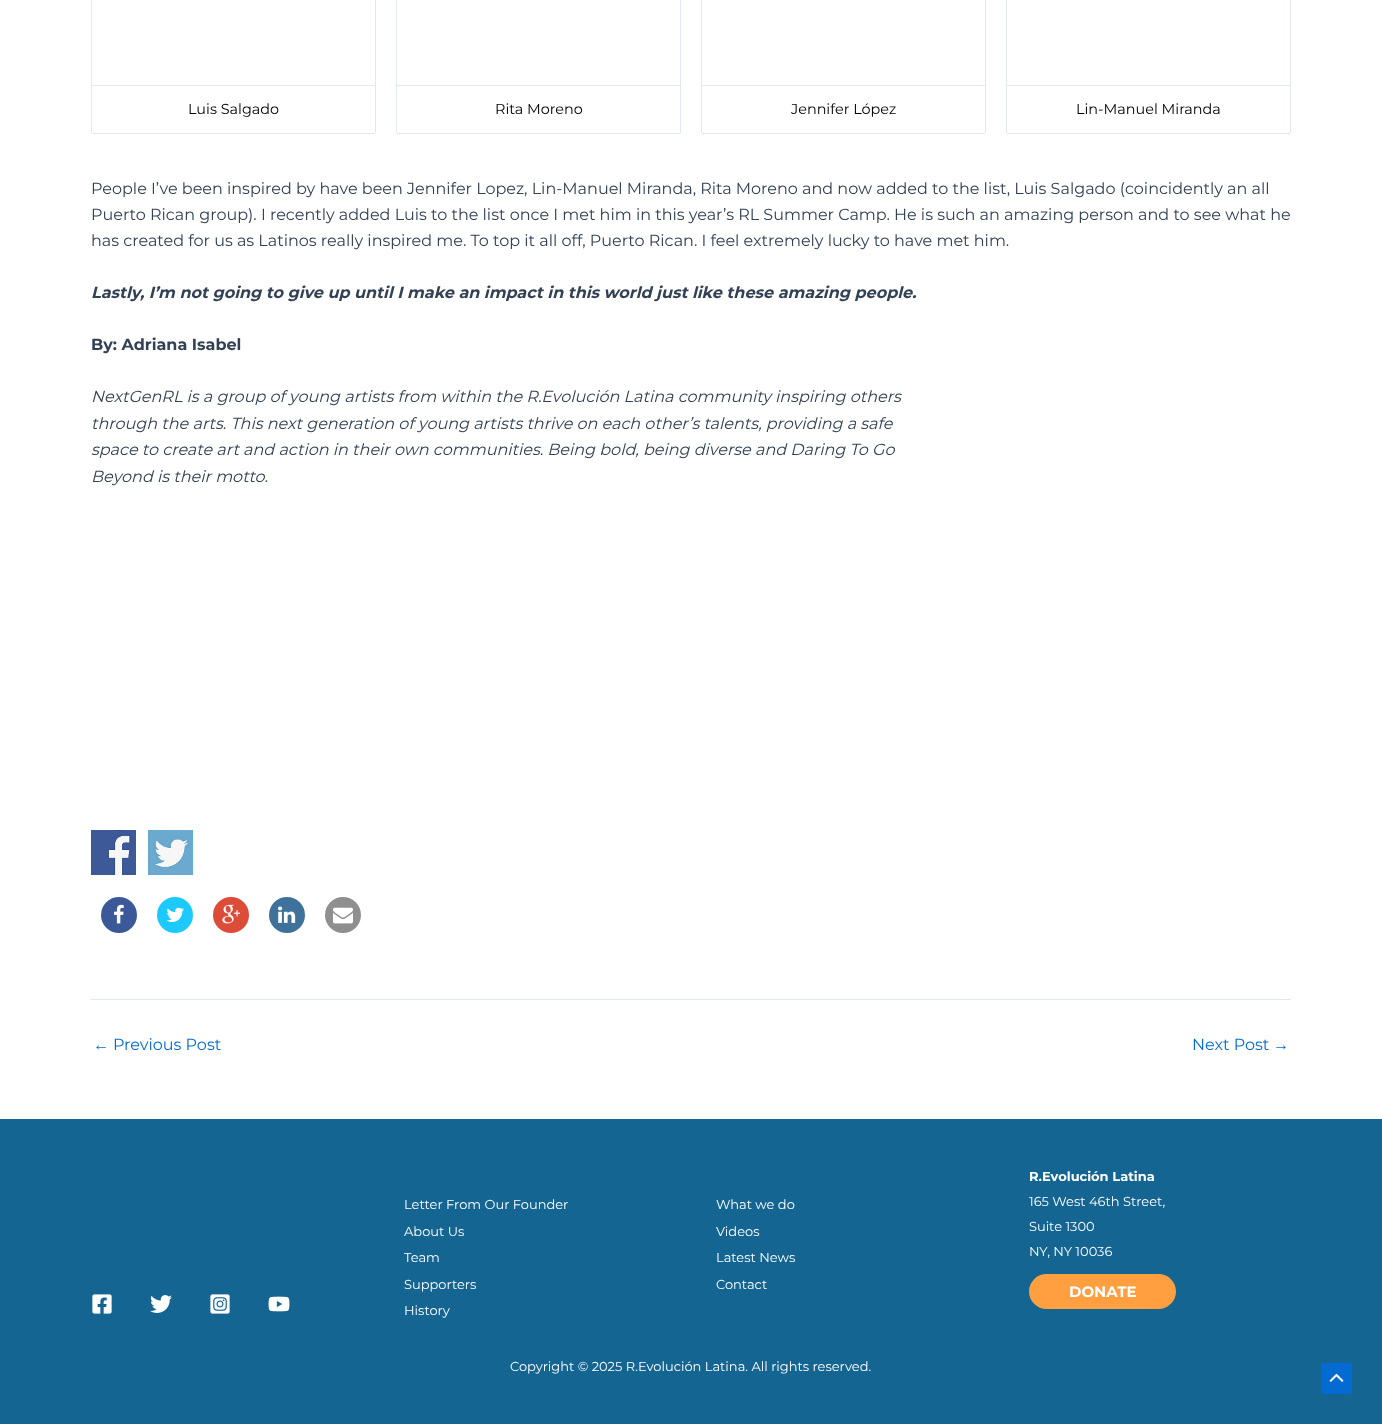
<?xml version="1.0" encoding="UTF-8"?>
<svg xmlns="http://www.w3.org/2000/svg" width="1382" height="1424">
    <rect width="100%" height="100%" fill="#FFFFFF"/>
    <rect x="91.5" y="-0.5" width="284" height="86" fill="none" stroke="#E2E8F0"/>
    <rect x="375" y="86" width="1" height="47" fill="#E2E8F0"/>
    <rect x="92" y="133" width="283" height="1" fill="#E2E8F0"/>
    <rect x="91" y="86" width="1" height="47" fill="#E2E8F0"/>
    <text x="188" y="114" font-family="Montserrat" font-size="14.4" fill="#000000">Luis Salgado</text>
    <rect x="396.5" y="-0.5" width="284" height="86" fill="none" stroke="#E2E8F0"/>
    <rect x="680" y="86" width="1" height="47" fill="#E2E8F0"/>
    <rect x="397" y="133" width="283" height="1" fill="#E2E8F0"/>
    <rect x="396" y="86" width="1" height="47" fill="#E2E8F0"/>
    <text x="495" y="114" font-family="Montserrat" font-size="14.4" fill="#000000">Rita Moreno</text>
    <rect x="701.5" y="-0.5" width="284" height="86" fill="none" stroke="#E2E8F0"/>
    <rect x="985" y="86" width="1" height="47" fill="#E2E8F0"/>
    <rect x="702" y="133" width="283" height="1" fill="#E2E8F0"/>
    <rect x="701" y="86" width="1" height="47" fill="#E2E8F0"/>
    <text x="791" y="114" font-family="Montserrat" font-size="14.4" fill="#000000">Jennifer López</text>
    <rect x="1006.5" y="-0.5" width="284" height="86" fill="none" stroke="#E2E8F0"/>
    <rect x="1290" y="86" width="1" height="47" fill="#E2E8F0"/>
    <rect x="1007" y="133" width="283" height="1" fill="#E2E8F0"/>
    <rect x="1006" y="86" width="1" height="47" fill="#E2E8F0"/>
    <text x="1076" y="114" font-family="Montserrat" font-size="14.4" fill="#000000">Lin-Manuel Miranda</text>
    <text font-family="Montserrat" font-size="16" fill="#334155">
        <tspan x="91" y="194">People I’ve been inspired by have been Jennifer Lopez, Lin-Manuel Miranda, Rita Moreno and now added to the list, Luis Salgado (coincidently an all</tspan>
        <tspan x="91" y="220">Puerto Rican group). I recently added Luis to the list once I met him in this year’s RL Summer Camp. He is such an amazing person and to see what he</tspan>
        <tspan x="91" y="246">has created for us as Latinos really inspired me. To top it all off, Puerto Rican. I feel extremely lucky to have met him.</tspan>
    </text>
    <text x="91" y="298" font-family="Montserrat" font-size="16" font-weight="700" font-style="italic" fill="#334155">Lastly, I’m not going to give up until I make an impact in this world just like these amazing people.</text>
    <text x="91" y="350" font-family="Montserrat" font-size="16" font-weight="700" fill="#334155">By: Adriana Isabel</text>
    <text font-family="Montserrat" font-size="16" font-style="italic" fill="#334155">
        <tspan x="91" y="402">NextGenRL is a group of young artists from within the R.Evolución Latina community inspiring others</tspan>
        <tspan x="91" y="429">through the arts. This next generation of young artists thrive on each other’s talents, providing a safe</tspan>
        <tspan x="91" y="455">space to create art and action in their own communities. Being bold, being diverse and Daring To Go</tspan>
        <tspan x="91" y="482">Beyond is their motto.</tspan>
    </text>
    <image x="91" y="830" width="45" height="45" href="img_01.png"/>
    <image x="148" y="830" width="45" height="45" href="img_02.png"/>
    <circle cx="119" cy="915" r="18" fill="#3B5998"/>
    <image x="114" y="904" width="10" height="20" href="img_03.png"/>
    <circle cx="175" cy="915" r="18" fill="#1DCAFF"/>
    <image x="166" y="907" width="18" height="15" href="img_04.png"/>
    <circle cx="231" cy="915" r="18" fill="#DD4B39"/>
    <image x="222" y="904" width="18" height="20" href="img_05.png"/>
    <circle cx="287" cy="915" r="18" fill="#3F729B"/>
    <image x="278" y="906" width="18" height="17" href="img_06.png"/>
    <circle cx="343" cy="915" r="18" fill="#8F8F8F"/>
    <image x="333" y="907" width="20" height="17" href="img_07.png"/>
    <rect x="91" y="999" width="1200" height="1" fill="#E2E8F0"/>
    <text x="93" y="1050" font-family="Liberation Sans" font-size="16" fill="#046BD2">←</text>
    <text x="113" y="1050" font-family="Montserrat" font-size="16" fill="#046BD2">Previous Post</text>
    <text x="1192" y="1050" font-family="Montserrat" font-size="16" fill="#046BD2">Next Post</text>
    <text x="1273" y="1050" font-family="Liberation Sans" font-size="16" fill="#046BD2">→</text>
    <rect x="0" y="1119" width="1382" height="305" fill="#156592"/>
    <text x="404" y="1209" font-family="Montserrat" font-size="13" fill="#FFFFFF">Letter From Our Founder</text>
    <text x="404" y="1236" font-family="Montserrat" font-size="13" fill="#FFFFFF">About Us</text>
    <text x="404" y="1262" font-family="Montserrat" font-size="13" fill="#FFFFFF">Team</text>
    <text x="404" y="1289" font-family="Montserrat" font-size="13" fill="#FFFFFF">Supporters</text>
    <text x="404" y="1315" font-family="Montserrat" font-size="13" fill="#FFFFFF">History</text>
    <text x="716" y="1209" font-family="Montserrat" font-size="13" fill="#FFFFFF">What we do</text>
    <text x="716" y="1236" font-family="Montserrat" font-size="13" fill="#FFFFFF">Videos</text>
    <text x="716" y="1262" font-family="Montserrat" font-size="13" fill="#FFFFFF">Latest News</text>
    <text x="716" y="1289" font-family="Montserrat" font-size="13" fill="#FFFFFF">Contact</text>
    <text x="1029" y="1181" font-family="Montserrat" font-size="13" font-weight="700" fill="#FFFFFF">R.Evolución Latina</text>
    <text font-family="Montserrat" font-size="13" fill="#FFFFFF">
        <tspan x="1029" y="1206">165 West 46th Street,</tspan>
        <tspan x="1029" y="1231">Suite 1300</tspan>
        <tspan x="1029" y="1256">NY, NY 10036</tspan>
    </text>
    <rect x="1029" y="1274" width="147" height="35" rx="17.5" fill="#FF9F3F"/>
    <text x="1069" y="1297" font-family="Montserrat" font-size="15" font-weight="700" fill="#FFFFFF">DONATE</text>
    <image x="92" y="1294" width="20" height="20" href="img_08.png"/>
    <image x="150" y="1295" width="22" height="18" href="img_09.png"/>
    <image x="210" y="1294" width="20" height="20" href="img_10.png"/>
    <image x="268" y="1296" width="22" height="16" href="img_11.png"/>
    <text x="510" y="1371" font-family="Montserrat" font-size="13" fill="#FFFFFF">Copyright © 2025 R.Evolución Latina. All rights reserved.</text>
    <rect x="1321" y="1363" width="31" height="31" rx="2" fill="#046BD2"/>
    <image x="1329" y="1373" width="15" height="9" href="img_12.png"/>
</svg>
